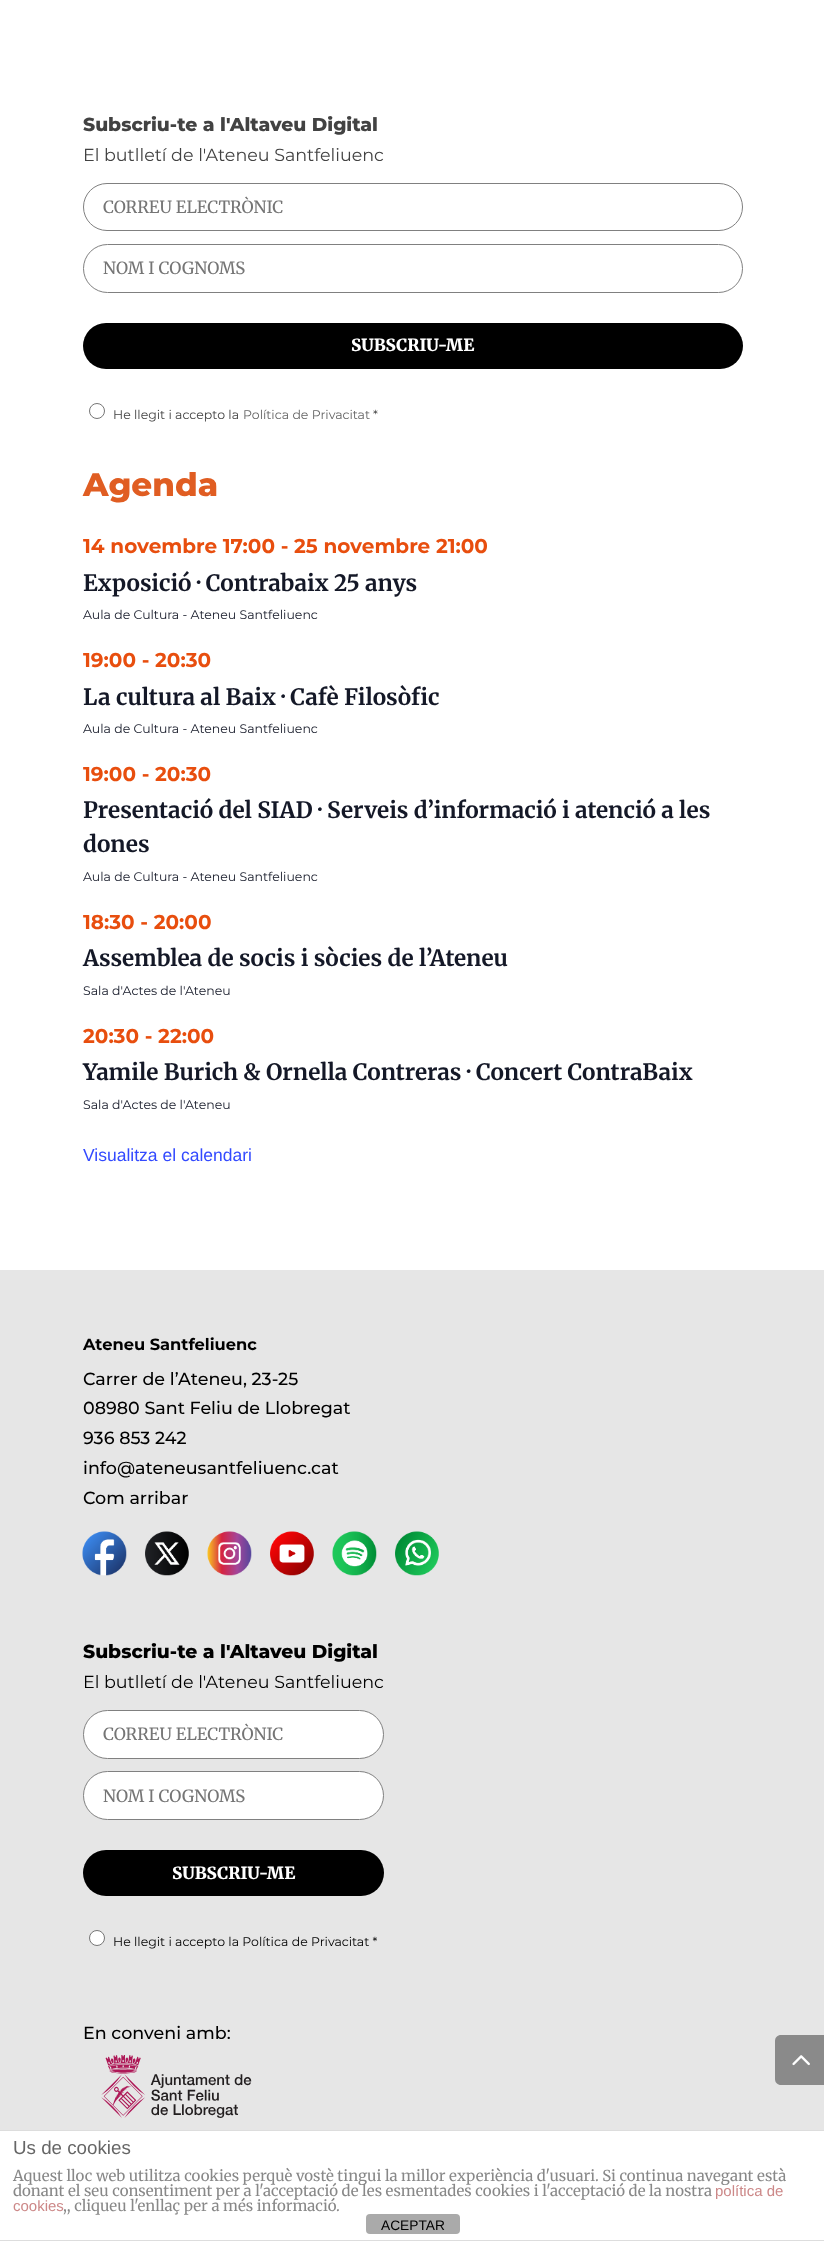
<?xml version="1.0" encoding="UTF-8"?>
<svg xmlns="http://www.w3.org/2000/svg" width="824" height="2241">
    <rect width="100%" height="100%" fill="#FFFFFF"/>
    <text x="83" y="131" font-family="Montserrat" font-size="18.75" font-weight="100" fill="#424242">Subscriu-te a l'Altaveu Digital</text>
    <text x="83" y="161" font-family="'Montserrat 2'" font-size="17.5" font-weight="100" fill="#424242">El butlletí de l'Ateneu Santfeliuenc</text>
    <rect x="83.5" y="183.5" width="659" height="47" rx="23.5" fill="none" stroke="#808080"/>
    <text x="103" y="213" font-family="Merriweather" font-size="16.75" font-weight="300" fill="#757575">CORREU ELECTRÒNIC</text>
    <rect x="83.5" y="244.5" width="659" height="48" rx="24" fill="none" stroke="#808080"/>
    <text x="103" y="274" font-family="Merriweather" font-size="16.75" font-weight="300" fill="#757575">NOM I COGNOMS</text>
    <rect x="83" y="323" width="660" height="46" rx="23" fill="#000000"/>
    <text x="351" y="351" font-family="'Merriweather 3'" font-size="16.75" font-weight="300" fill="#FFFFFF">SUBSCRIU-ME</text>
    <circle cx="97" cy="411" r="7.5" fill="none" stroke="#767676"/>
    <text x="113" y="419" font-family="'Montserrat 2'" font-size="12.5" font-weight="100" fill="#424242">He llegit i accepto la</text>
    <text x="243" y="419" font-family="'Montserrat 2'" font-size="12.5" font-weight="100" fill="#666666">Política de Privacitat</text>
    <text x="373" y="419" font-family="'Montserrat 2'" font-size="12.5" font-weight="100" fill="#424242">*</text>
    <text x="83" y="496" font-family="Montserrat" font-size="32.5" font-weight="100" fill="#E05D22">Agenda</text>
    <text x="83" y="553" font-family="'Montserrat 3'" font-size="20" font-weight="100" fill="#E84E0E">14 novembre 17:00 - 25 novembre 21:00</text>
    <text x="83" y="591" font-family="'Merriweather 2'" font-size="22.5" font-weight="300" fill="#141827">Exposició · Contrabaix 25 anys</text>
    <text x="83" y="619" font-family="'Montserrat 2'" font-size="12.5" font-weight="100" fill="#141827">Aula de Cultura - Ateneu Santfeliuenc</text>
    <text x="83" y="667" font-family="'Montserrat 3'" font-size="20" font-weight="100" fill="#E84E0E">19:00 - 20:30</text>
    <text x="83" y="705" font-family="'Merriweather 2'" font-size="22.5" font-weight="300" fill="#141827">La cultura al Baix · Cafè Filosòfic</text>
    <text x="83" y="733" font-family="'Montserrat 2'" font-size="12.5" font-weight="100" fill="#141827">Aula de Cultura - Ateneu Santfeliuenc</text>
    <text x="83" y="781" font-family="'Montserrat 3'" font-size="20" font-weight="100" fill="#E84E0E">19:00 - 20:30</text>
    <text font-family="'Merriweather 2'" font-size="22.5" font-weight="300" fill="#141827">
        <tspan x="83" y="818">Presentació del SIAD · Serveis d’informació i atenció a les</tspan>
        <tspan x="83" y="852">dones</tspan>
    </text>
    <text x="83" y="881" font-family="'Montserrat 2'" font-size="12.5" font-weight="100" fill="#141827">Aula de Cultura - Ateneu Santfeliuenc</text>
    <text x="83" y="929" font-family="'Montserrat 3'" font-size="20" font-weight="100" fill="#E84E0E">18:30 - 20:00</text>
    <text x="83" y="966" font-family="'Merriweather 2'" font-size="22.5" font-weight="300" fill="#141827">Assemblea de socis i sòcies de l’Ateneu</text>
    <text x="83" y="995" font-family="'Montserrat 2'" font-size="12.5" font-weight="100" fill="#141827">Sala d'Actes de l'Ateneu</text>
    <text x="83" y="1043" font-family="'Montserrat 3'" font-size="20" font-weight="100" fill="#E84E0E">20:30 - 22:00</text>
    <text x="83" y="1080" font-family="'Merriweather 2'" font-size="22.5" font-weight="300" fill="#141827">Yamile Burich &amp; Ornella Contreras · Concert ContraBaix</text>
    <text x="83" y="1109" font-family="'Montserrat 2'" font-size="12.5" font-weight="100" fill="#141827">Sala d'Actes de l'Ateneu</text>
    <text x="83" y="1161" font-family="Liberation Sans" font-size="17.5" fill="#334AFF">Visualitza el calendari</text>
    <rect x="0" y="1270" width="824" height="860" fill="#E6E6E6"/>
    <text x="83" y="1350" font-family="'Montserrat 3'" font-size="16.25" font-weight="100" fill="#000000">Ateneu Santfeliuenc</text>
    <text font-family="'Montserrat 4'" font-size="17.5" font-weight="100" fill="#000000">
        <tspan x="83" y="1385">Carrer de l’Ateneu, 23-25</tspan>
        <tspan x="83" y="1414">08980 Sant Feliu de Llobregat</tspan>
        <tspan x="83" y="1444">936 853 242</tspan>
        <tspan x="83" y="1474">info@ateneusantfeliuenc.cat</tspan>
        <tspan x="83" y="1504">Com arribar</tspan>
    </text>
    <image x="82" y="1531" width="45" height="45" href="img_01.png"/>
    <image x="145" y="1531" width="44" height="45" href="img_02.png"/>
    <image x="207" y="1531" width="45" height="45" href="img_03.png"/>
    <image x="270" y="1531" width="44" height="45" href="img_04.png"/>
    <image x="332" y="1531" width="45" height="45" href="img_05.png"/>
    <image x="395" y="1531" width="44" height="45" href="img_06.png"/>
    <text x="83" y="1658" font-family="Montserrat" font-size="18.75" font-weight="100" fill="#000000">Subscriu-te a l'Altaveu Digital</text>
    <text x="83" y="1688" font-family="'Montserrat 2'" font-size="17.5" font-weight="100" fill="#000000">El butlletí de l'Ateneu Santfeliuenc</text>
    <rect x="83.5" y="1710.5" width="300" height="48" rx="24" fill="#FFFFFF" stroke="#808080"/>
    <text x="103" y="1740" font-family="Merriweather" font-size="16.75" font-weight="300" fill="#757575">CORREU ELECTRÒNIC</text>
    <rect x="83.5" y="1771.5" width="300" height="48" rx="24" fill="#FFFFFF" stroke="#808080"/>
    <text x="103" y="1802" font-family="Merriweather" font-size="16.75" font-weight="300" fill="#757575">NOM I COGNOMS</text>
    <rect x="83" y="1850" width="301" height="46" rx="23" fill="#000000"/>
    <text x="172" y="1879" font-family="'Merriweather 3'" font-size="16.75" font-weight="300" fill="#FFFFFF">SUBSCRIU-ME</text>
    <circle cx="97" cy="1938" r="7.5" fill="#FFFFFF" stroke="#767676"/>
    <text x="113" y="1946" font-family="'Montserrat 2'" font-size="12.5" font-weight="100" fill="#000000">He llegit i accepto la Política de Privacitat *</text>
    <text x="83" y="2039" font-family="'Montserrat 4'" font-size="17.5" font-weight="100" fill="#000000">En conveni amb:</text>
    <image x="101" y="2055" width="151" height="63" href="img_07.png"/>
    <path d="M 781 2035 H 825 V 2085 H 781 C 777.5 2085 775 2082.5 775 2079 V 2041 C 775 2037.5 777.5 2035 781 2035 Z" fill="#8A8A8A"/>
    <image x="792" y="2055" width="18" height="11" href="img_08.png"/>
    <rect x="0" y="2130" width="824" height="1" fill="#DDDDDD"/>
    <rect x="0" y="2240" width="824" height="1" fill="#DDDDDD"/>
    <text x="13" y="2154" font-family="Liberation Sans" font-size="18.75" fill="#666666">Us de cookies</text>
    <text font-family="Merriweather" font-size="15" font-weight="300" fill="#888888">
        <tspan x="13" y="2181">Aquest lloc web utilitza cookies perquè vostè tingui la millor experiència d'usuari. Si continua navegant està</tspan>
        <tspan x="13" y="2196">donant el seu consentiment per a l'acceptació de les esmentades cookies i l'acceptació de la nostra</tspan>
    </text>
    <text x="715" y="2196" font-family="Liberation Sans" font-size="15" fill="#CC8888">política de</text>
    <text x="13" y="2211" font-family="Liberation Sans" font-size="15" fill="#CC8888">cookies</text>
    <text x="63" y="2211" font-family="Merriweather" font-size="15" font-weight="300" fill="#888888">,, cliqueu l'enllaç per a més informació.</text>
    <rect x="366" y="2214" width="94" height="20" rx="4" fill="#AAAAAA"/>
    <text x="381" y="2230" font-family="Liberation Sans" font-size="13.75" fill="#000000">ACEPTAR</text>
</svg>
